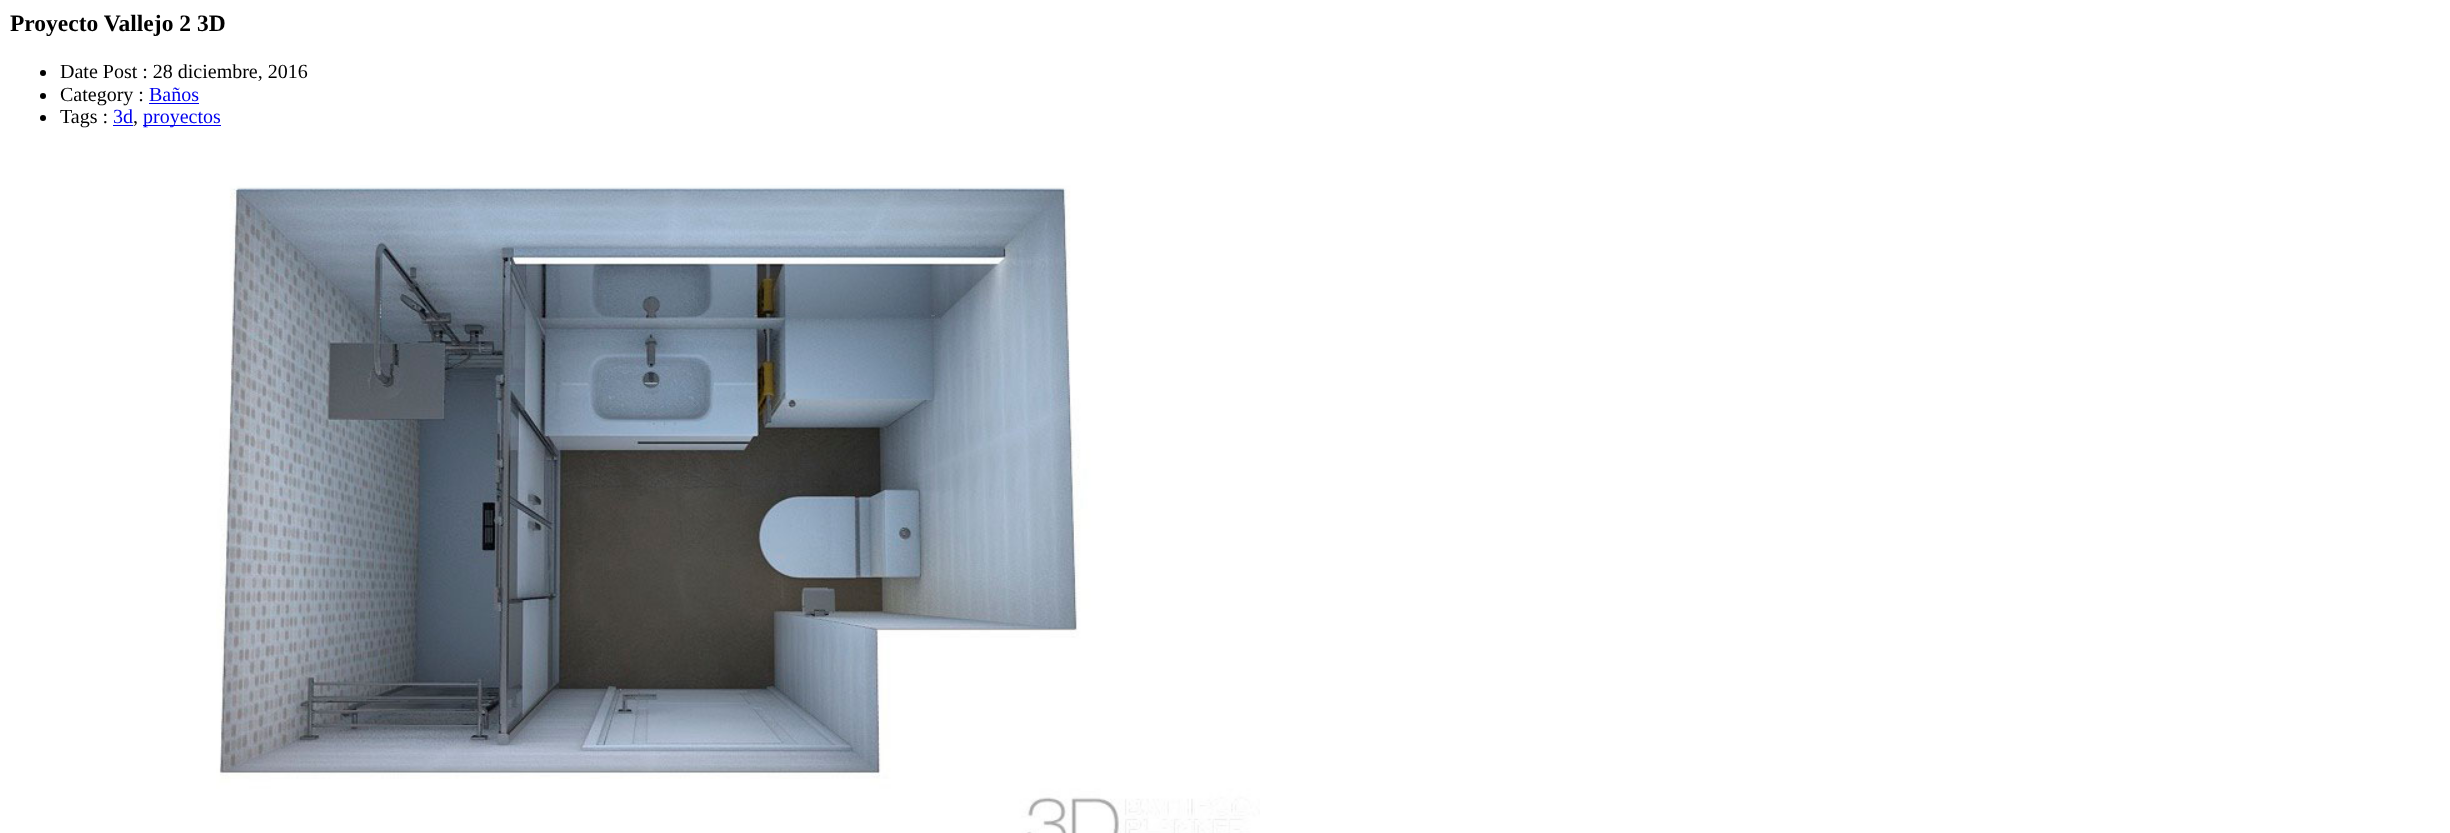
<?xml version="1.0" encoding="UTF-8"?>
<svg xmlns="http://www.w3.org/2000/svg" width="2450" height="833">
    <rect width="100%" height="100%" fill="#FFFFFF"/>
    <text x="10" y="31" font-family="Liberation Serif" font-size="23.5" font-weight="700" fill="#000000">Proyecto Vallejo 2 3D</text>
    <circle cx="43" cy="73" r="3" fill="#000000"/>
    <text x="60" y="78" font-family="Liberation Serif" font-size="20" fill="#000000">Date Post : 28 diciembre, 2016</text>
    <circle cx="43" cy="96" r="3" fill="#000000"/>
    <text x="60" y="101" font-family="Liberation Serif" font-size="20" fill="#000000">Category :</text>
    <text x="149" y="101" font-family="Liberation Serif" font-size="20" fill="#0000EE">Baños</text>
    <rect x="149" y="103" width="50" height="1" fill="#0000EE"/>
    <circle cx="43" cy="118" r="3" fill="#000000"/>
    <text x="60" y="123" font-family="Liberation Serif" font-size="20" fill="#000000">Tags :</text>
    <text x="113" y="123" font-family="Liberation Serif" font-size="20" fill="#0000EE">3d</text>
    <rect x="113" y="125" width="20" height="1" fill="#0000EE"/>
    <rect x="143" y="125" width="78" height="1" fill="#0000EE"/>
    <text x="143" y="123" font-family="Liberation Serif" font-size="20" fill="#0000EE">proyectos</text>
    <text x="133" y="123" font-family="Liberation Serif" font-size="20" fill="#000000">,</text>
    <image x="216" y="185" width="1044" height="648" href="img_01.png"/>
</svg>
